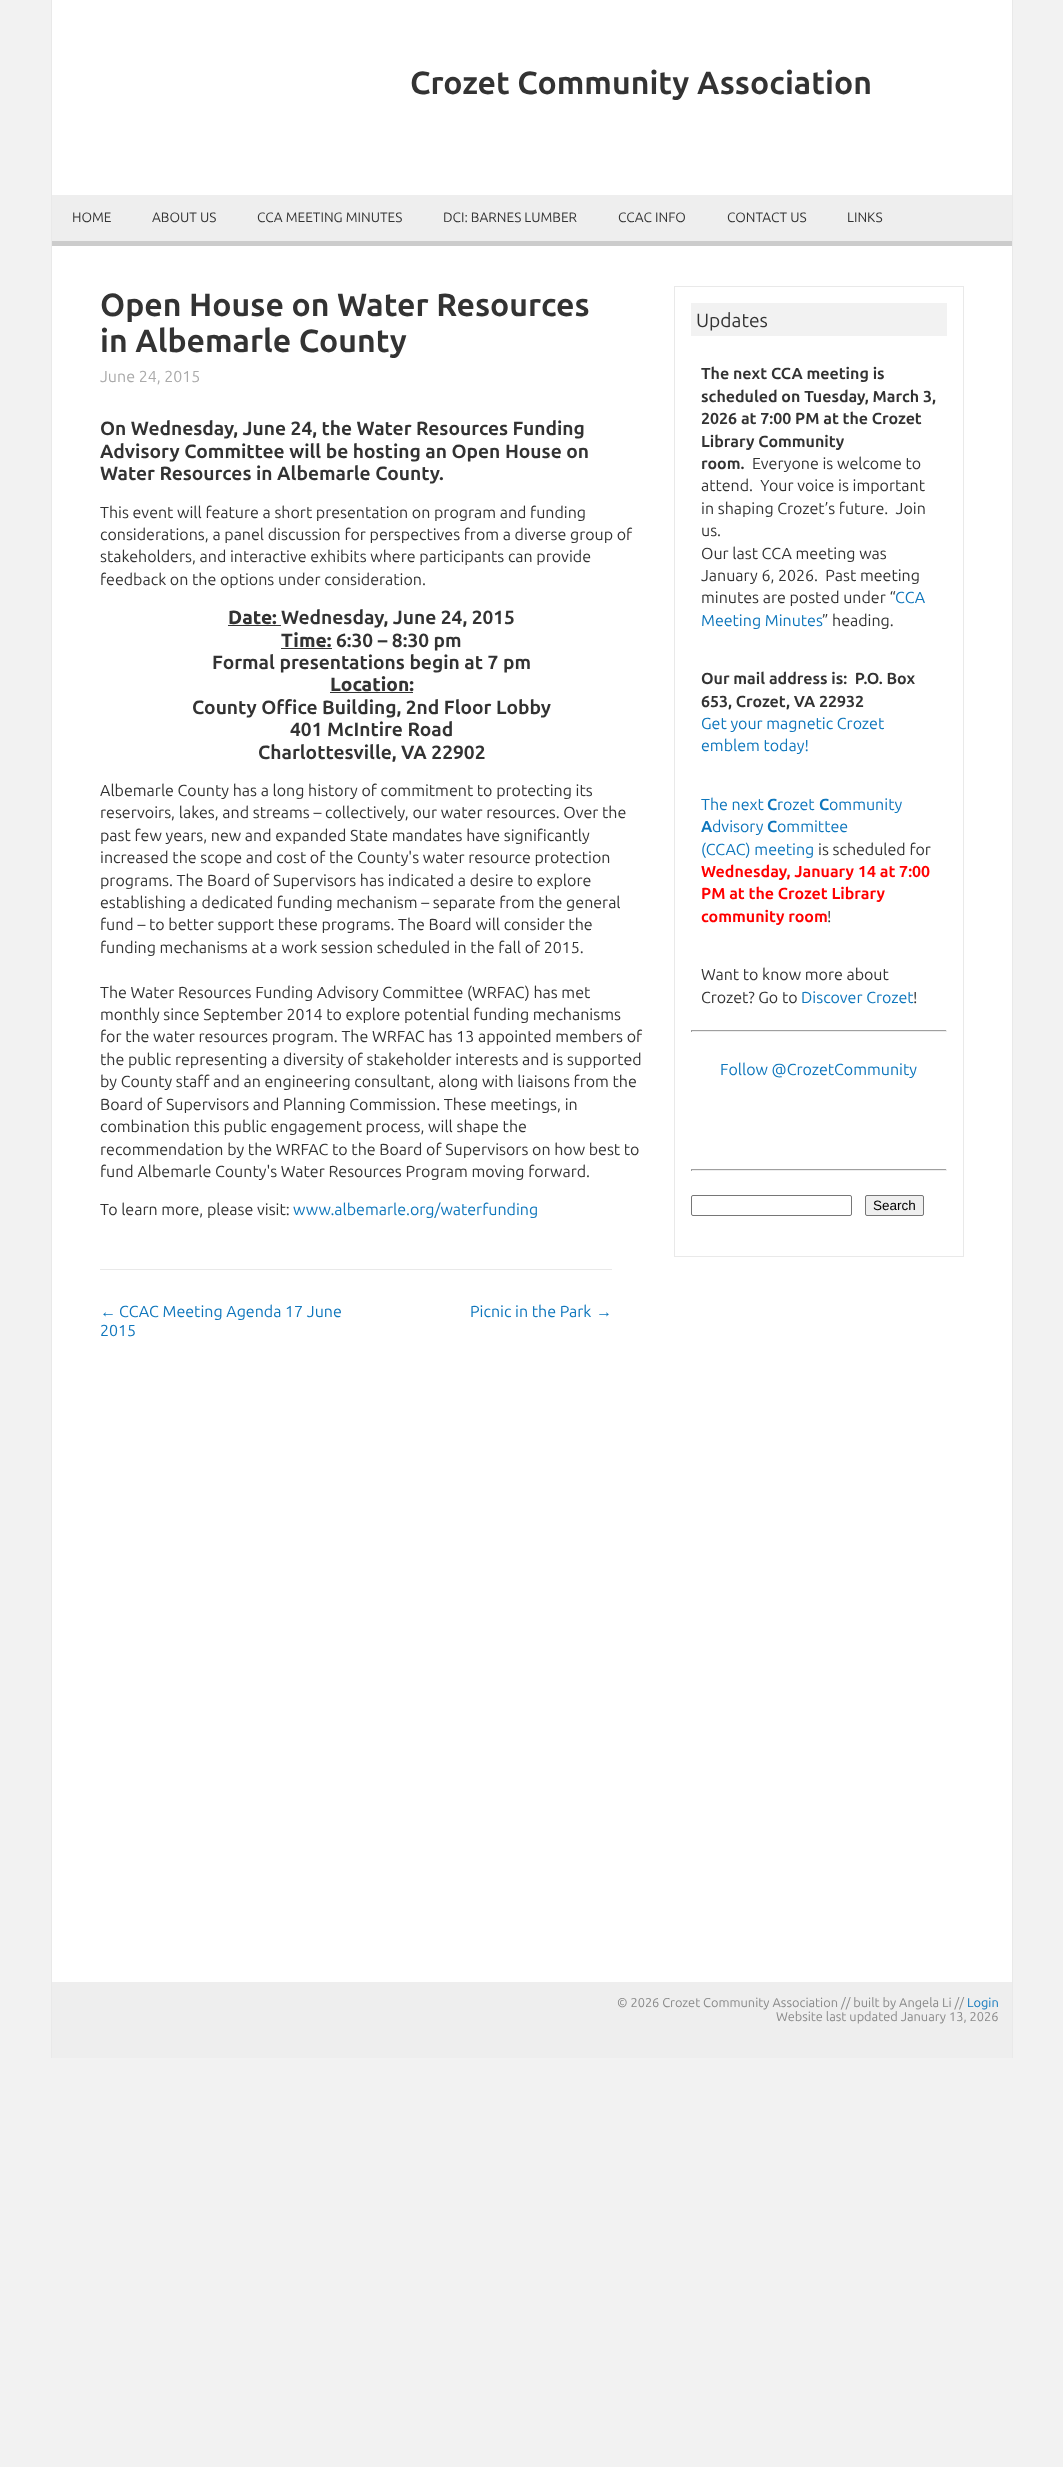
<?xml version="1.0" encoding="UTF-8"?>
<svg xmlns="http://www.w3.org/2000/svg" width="1063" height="2467">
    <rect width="100%" height="100%" fill="#F2F2F2"/>
    <rect x="52" y="0" width="960" height="1982" fill="#FFFFFF"/>
    <rect x="1012" y="0" width="1" height="2058" fill="#E9E9E9"/>
    <rect x="51" y="0" width="1" height="2058" fill="#E9E9E9"/>
    <text x="410" y="94" font-family="Ubuntu" font-size="32" font-weight="700" fill="#333333">Crozet Community Association</text>
    <rect x="52" y="195" width="960" height="46" fill="#EEEEEE"/>
    <rect x="52" y="241" width="960" height="5" fill="#CCCCCC"/>
    <text x="72" y="222" font-family="Ubuntu" font-size="13.6" fill="#333333">HOME</text>
    <text x="152" y="222" font-family="Ubuntu" font-size="13.6" fill="#333333">ABOUT US</text>
    <text x="257" y="222" font-family="Ubuntu" font-size="13.6" fill="#333333">CCA MEETING MINUTES</text>
    <text x="443" y="222" font-family="Ubuntu" font-size="13.6" fill="#333333">DCI: BARNES LUMBER</text>
    <text x="618" y="222" font-family="Ubuntu" font-size="13.6" fill="#333333">CCAC INFO</text>
    <text x="727" y="222" font-family="Ubuntu" font-size="13.6" fill="#333333">CONTACT US</text>
    <text x="847" y="222" font-family="Ubuntu" font-size="13.6" fill="#333333">LINKS</text>
    <rect x="100" y="1269" width="512" height="1" fill="#E9E9E9"/>
    <text font-family="Ubuntu" font-size="32" font-weight="700" fill="#333333">
        <tspan x="100" y="316">Open House on Water Resources</tspan>
        <tspan x="100" y="352">in Albemarle County</tspan>
    </text>
    <text x="100" y="382" font-family="Ubuntu" font-size="16" fill="#AAAAAA">June 24, 2015</text>
    <text font-family="Ubuntu" font-size="19.2" font-weight="700" fill="#333333">
        <tspan x="100" y="435">On Wednesday, June 24, the Water Resources Funding</tspan>
        <tspan x="100" y="458">Advisory Committee will be hosting an Open House on</tspan>
        <tspan x="100" y="480">Water Resources in Albemarle County.</tspan>
    </text>
    <text font-family="Ubuntu" font-size="16" fill="#333333">
        <tspan x="100" y="518">This event will feature a short presentation on program and funding</tspan>
        <tspan x="100" y="540">considerations, a panel discussion for perspectives from a diverse group of</tspan>
        <tspan x="100" y="562">stakeholders, and interactive exhibits where participants can provide</tspan>
        <tspan x="100" y="585">feedback on the options under consideration.</tspan>
    </text>
    <text x="228" y="624" font-family="Ubuntu" font-size="19.2" font-weight="800" fill="#333333">Date:</text>
    <rect x="228" y="625" width="53" height="1" fill="#333333"/>
    <text x="281" y="624" font-family="Ubuntu" font-size="19.2" font-weight="700" fill="#333333">Wednesday, June 24, 2015</text>
    <text x="281" y="647" font-family="Ubuntu" font-size="19.2" font-weight="800" fill="#333333">Time:</text>
    <rect x="281" y="648" width="51" height="1" fill="#333333"/>
    <text x="336" y="647" font-family="Ubuntu" font-size="19.2" font-weight="700" fill="#333333">6:30 – 8:30 pm</text>
    <text x="212" y="669" font-family="Ubuntu" font-size="19.2" font-weight="700" fill="#333333">Formal presentations begin at 7 pm</text>
    <text x="330" y="691" font-family="Ubuntu" font-size="19.2" font-weight="800" fill="#333333">Location:</text>
    <rect x="330" y="692" width="83" height="1" fill="#333333"/>
    <text x="192" y="714" font-family="Ubuntu" font-size="19.2" font-weight="700" fill="#333333">County Office Building, 2nd Floor Lobby</text>
    <text x="290" y="736" font-family="Ubuntu" font-size="19.2" font-weight="700" fill="#333333">401 McIntire Road</text>
    <text x="258" y="759" font-family="Ubuntu" font-size="19.2" font-weight="700" fill="#333333">Charlottesville, VA 22902</text>
    <text font-family="Ubuntu" font-size="16" fill="#333333">
        <tspan x="100" y="796">Albemarle County has a long history of commitment to protecting its</tspan>
        <tspan x="100" y="818">reservoirs, lakes, and streams – collectively, our water resources. Over the</tspan>
        <tspan x="100" y="841">past few years, new and expanded State mandates have significantly</tspan>
        <tspan x="100" y="863">increased the scope and cost of the County's water resource protection</tspan>
        <tspan x="100" y="886">programs. The Board of Supervisors has indicated a desire to explore</tspan>
        <tspan x="100" y="908">establishing a dedicated funding mechanism – separate from the general</tspan>
        <tspan x="100" y="930">fund – to better support these programs. The Board will consider the</tspan>
        <tspan x="100" y="953">funding mechanisms at a work session scheduled in the fall of 2015.</tspan>
    </text>
    <text font-family="Ubuntu" font-size="16" fill="#333333">
        <tspan x="100" y="998">The Water Resources Funding Advisory Committee (WRFAC) has met</tspan>
        <tspan x="100" y="1020">monthly since September 2014 to explore potential funding mechanisms</tspan>
        <tspan x="100" y="1042">for the water resources program. The WRFAC has 13 appointed members of</tspan>
        <tspan x="100" y="1065">the public representing a diversity of stakeholder interests and is supported</tspan>
        <tspan x="100" y="1087">by County staff and an engineering consultant, along with liaisons from the</tspan>
        <tspan x="100" y="1110">Board of Supervisors and Planning Commission. These meetings, in</tspan>
        <tspan x="100" y="1132">combination this public engagement process, will shape the</tspan>
        <tspan x="100" y="1155">recommendation by the WRFAC to the Board of Supervisors on how best to</tspan>
        <tspan x="100" y="1177">fund Albemarle County's Water Resources Program moving forward.</tspan>
    </text>
    <text x="100" y="1215" font-family="Ubuntu" font-size="16" fill="#333333">To learn more, please visit:</text>
    <text x="293" y="1215" font-family="Ubuntu" font-size="16" fill="#0E76BC">www.albemarle.org/waterfunding</text>
    <text x="100" y="1317" font-family="Liberation Sans" font-size="16" fill="#0E76BC">←</text>
    <text x="119" y="1317" font-family="Ubuntu" font-size="16" fill="#0E76BC">CCAC Meeting Agenda 17 June</text>
    <text x="100" y="1336" font-family="Ubuntu" font-size="16" fill="#0E76BC">2015</text>
    <text x="470" y="1317" font-family="Ubuntu" font-size="16" fill="#0E76BC">Picnic in the Park</text>
    <text x="596" y="1317" font-family="Liberation Sans" font-size="16" fill="#0E76BC">→</text>
    <rect x="674.5" y="286.5" width="289" height="970" fill="none" stroke="#E9E9E9"/>
    <rect x="691" y="303" width="256" height="33" fill="#F2F2F2"/>
    <text x="696" y="327" font-family="Ubuntu" font-size="19.2" fill="#333333">Updates</text>
    <text font-family="Ubuntu" font-size="16" font-weight="700" fill="#333333">
        <tspan x="701" y="379">The next CCA meeting is</tspan>
        <tspan x="701" y="402">scheduled on Tuesday, March 3,</tspan>
        <tspan x="701" y="424">2026 at 7:00 PM at the Crozet</tspan>
        <tspan x="701" y="447">Library Community</tspan>
        <tspan x="701" y="469">room.</tspan>
    </text>
    <text x="752" y="469" font-family="Ubuntu" font-size="16" fill="#333333">Everyone is welcome to</text>
    <text font-family="Ubuntu" font-size="16" fill="#333333" xml:space="preserve"><tspan x="701" y="491">attend.  Your voice is important</tspan><tspan x="701" y="514">in shaping Crozet’s future.  Join</tspan><tspan x="701" y="536">us.</tspan><tspan x="701" y="559">Our last CCA meeting was</tspan><tspan x="701" y="581">January 6, 2026.  Past meeting</tspan><tspan x="701" y="603">minutes are posted under “</tspan></text>
    <text x="895" y="603" font-family="Ubuntu" font-size="16" fill="#0E76BC">CCA</text>
    <text x="701" y="626" font-family="Ubuntu" font-size="16" fill="#0E76BC">Meeting Minutes</text>
    <text x="822" y="626" font-family="Ubuntu" font-size="16" fill="#333333">” heading.</text>
    <text font-family="Ubuntu" font-size="16" font-weight="700" fill="#333333" xml:space="preserve"><tspan x="701" y="684">Our mail address is:  P.O. Box</tspan><tspan x="701" y="707">653, Crozet, VA 22932</tspan></text>
    <text font-family="Ubuntu" font-size="16" fill="#0E76BC">
        <tspan x="701" y="729">Get your magnetic Crozet</tspan>
        <tspan x="701" y="751">emblem today!</tspan>
    </text>
    <text x="701" y="810" font-family="Ubuntu" font-size="16" fill="#0E76BC">The next</text>
    <text x="767" y="810" font-family="Ubuntu" font-size="16" font-weight="700" fill="#0E76BC">C</text>
    <text x="777" y="810" font-family="Ubuntu" font-size="16" fill="#0E76BC">rozet</text>
    <text x="819" y="810" font-family="Ubuntu" font-size="16" font-weight="700" fill="#0E76BC">C</text>
    <text x="829" y="810" font-family="Ubuntu" font-size="16" fill="#0E76BC">ommunity</text>
    <text x="701" y="832" font-family="Ubuntu" font-size="16" font-weight="700" fill="#0E76BC">A</text>
    <text x="712" y="832" font-family="Ubuntu" font-size="16" fill="#0E76BC">dvisory</text>
    <text x="767" y="832" font-family="Ubuntu" font-size="16" font-weight="700" fill="#0E76BC">C</text>
    <text x="777" y="832" font-family="Ubuntu" font-size="16" fill="#0E76BC">ommittee</text>
    <text x="701" y="855" font-family="Ubuntu" font-size="16" fill="#0E76BC">(CCAC) meeting</text>
    <text x="818" y="855" font-family="Ubuntu" font-size="16" fill="#333333">is scheduled for</text>
    <text font-family="Ubuntu" font-size="16" font-weight="700" fill="#FF0000">
        <tspan x="701" y="877">Wednesday, January 14 at 7:00</tspan>
        <tspan x="701" y="899">PM at the Crozet Library</tspan>
        <tspan x="701" y="922">community room</tspan>
    </text>
    <text x="827" y="922" font-family="Ubuntu" font-size="16" fill="#333333">!</text>
    <text font-family="Ubuntu" font-size="16" fill="#333333">
        <tspan x="701" y="980">Want to know more about</tspan>
        <tspan x="701" y="1003">Crozet? Go to</tspan>
    </text>
    <text x="801" y="1003" font-family="Ubuntu" font-size="16" fill="#0E76BC">Discover Crozet</text>
    <text x="913" y="1003" font-family="Ubuntu" font-size="16" fill="#333333">!</text>
    <rect x="691" y="1030" width="256" height="1" fill="#9F9F9F"/>
    <rect x="946" y="1030" width="1" height="2" fill="#EEEEEE"/>
    <rect x="691" y="1031" width="256" height="1" fill="#EEEEEE"/>
    <rect x="691" y="1030" width="1" height="2" fill="#9F9F9F"/>
    <text x="720" y="1075" font-family="Ubuntu" font-size="16" fill="#0E76BC">Follow @CrozetCommunity</text>
    <rect x="691" y="1169" width="256" height="1" fill="#9F9F9F"/>
    <rect x="946" y="1169" width="1" height="2" fill="#EEEEEE"/>
    <rect x="691" y="1170" width="256" height="1" fill="#EEEEEE"/>
    <rect x="691" y="1169" width="1" height="2" fill="#9F9F9F"/>
    <rect x="691.5" y="1195.5" width="160" height="20" rx="1.5" fill="none" stroke="#767676"/>
    <rect x="865.5" y="1195.5" width="58" height="20" rx="1.5" fill="#EFEFEF" stroke="#767676"/>
    <text x="873" y="1210" font-family="Liberation Sans" font-size="13.5" fill="#000000">Search</text>
    <rect x="52" y="1982" width="960" height="76" fill="#EEEEEE"/>
    <text x="617" y="2007" font-family="Ubuntu" font-size="12.8" fill="#888888">© 2026 Crozet Community Association // built by Angela Li //</text>
    <text x="967" y="2007" font-family="Ubuntu" font-size="12.8" fill="#0E76BC">Login</text>
    <text x="776" y="2021" font-family="Ubuntu" font-size="12.8" fill="#888888">Website last updated January 13, 2026</text>
</svg>
